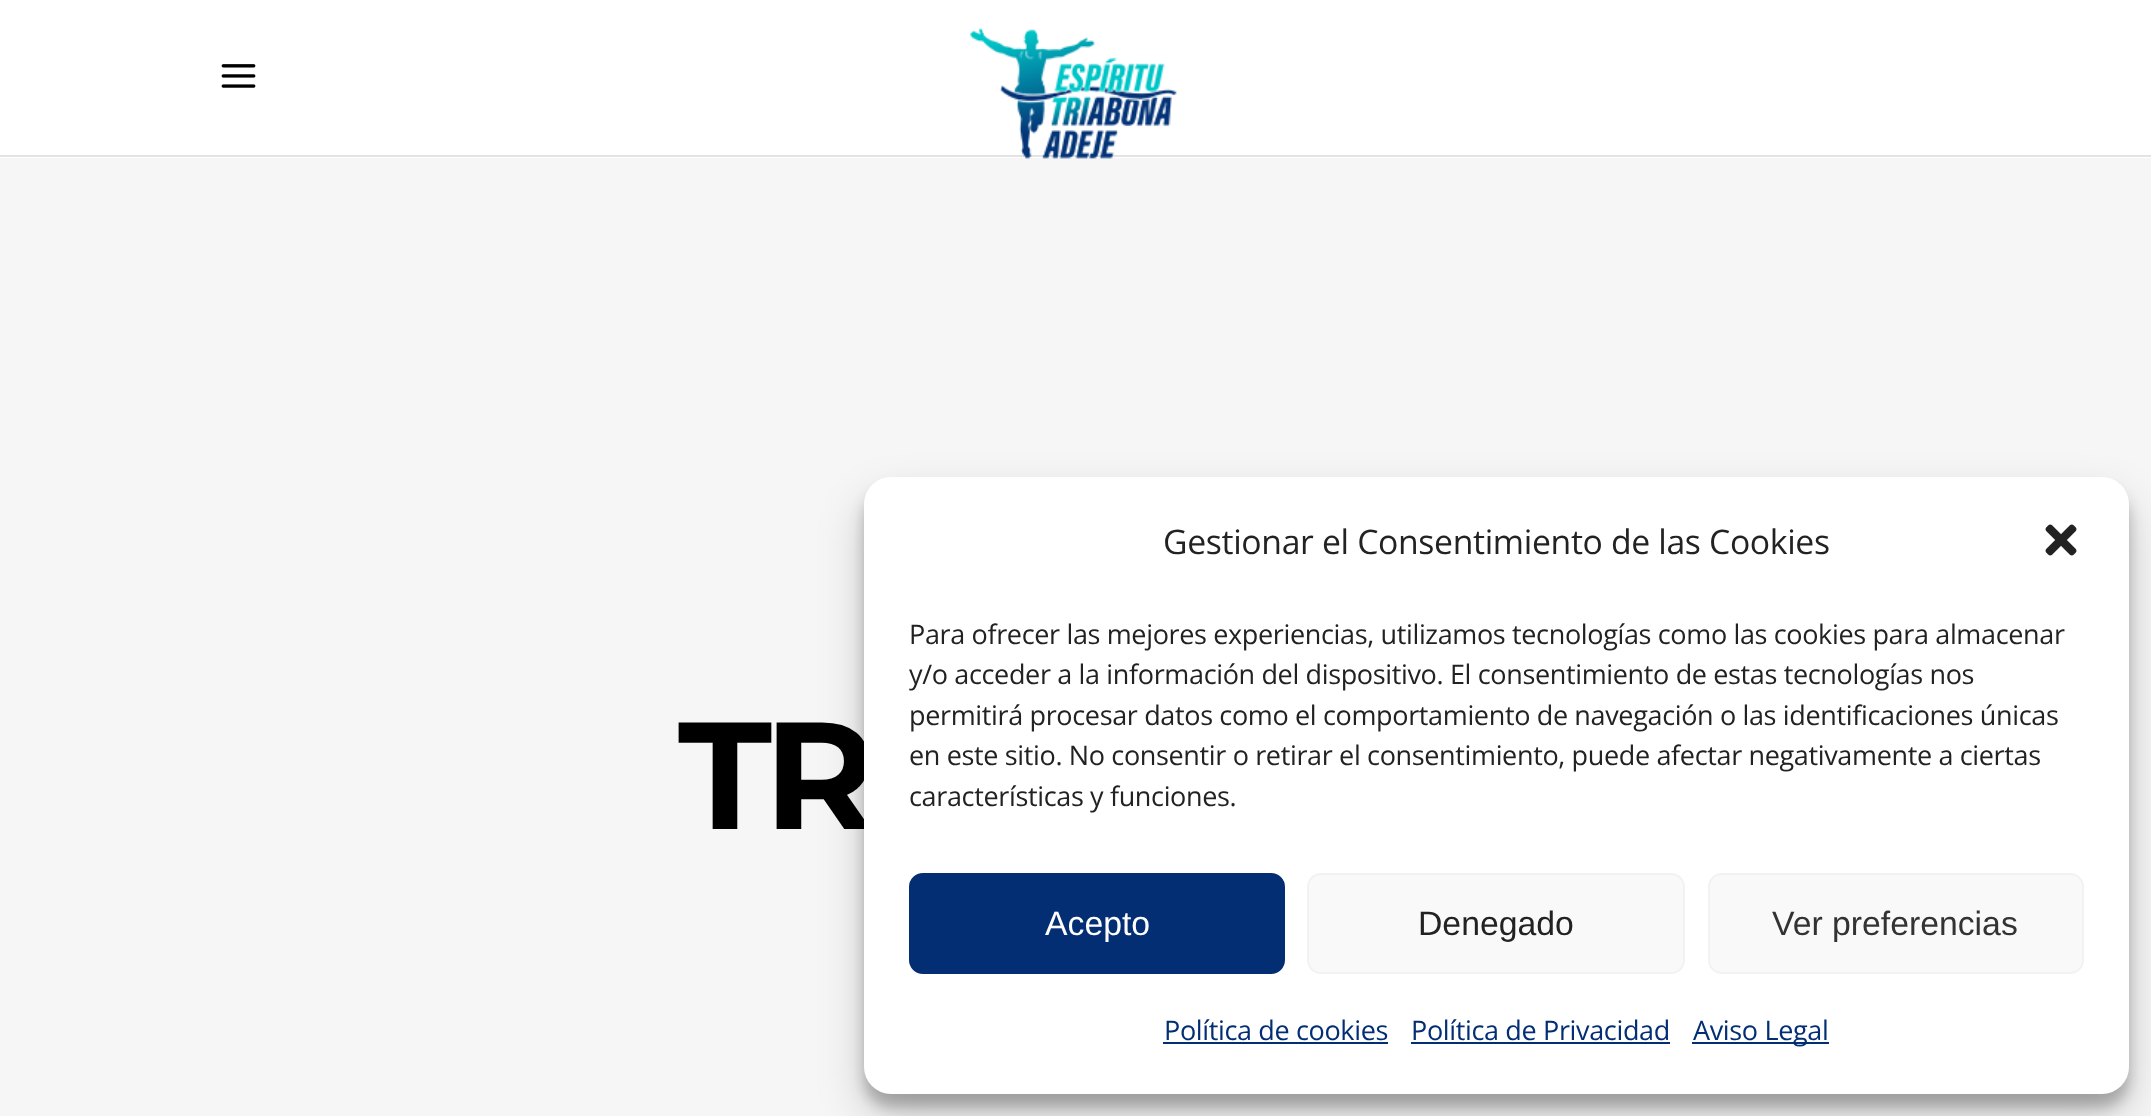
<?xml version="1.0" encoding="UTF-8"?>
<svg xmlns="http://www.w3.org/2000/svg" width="2151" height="1116">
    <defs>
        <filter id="blur1" x="-50%" y="-200%" width="200%" height="500%"><feGaussianBlur stdDeviation="7"/></filter>
        <filter id="blur2" x="-50%" y="-200%" width="200%" height="500%"><feGaussianBlur stdDeviation="22.5"/></filter>
    </defs>
    <rect width="100%" height="100%" fill="#FFFFFF"/>
    <rect x="0" y="155" width="2151" height="2" fill="#E3E3E3"/>
    <image x="221" y="64" width="35" height="24" href="img_01.png"/>
    <rect x="0" y="158" width="2151" height="958" fill="#F6F6F6"/>
    <image x="970" y="28" width="207" height="131" href="img_02.png"/>
    <text x="678" y="829" font-family="Montserrat" font-size="152" font-weight="700" letter-spacing="-8" fill="#000000">TR</text>
    <rect x="864" y="491" width="1265" height="616" rx="27" fill="#000000" fill-opacity="0.23" filter="url(#blur1)"/>
    <rect x="864" y="500" width="1265" height="616" rx="27" fill="#000000" fill-opacity="0.19" filter="url(#blur2)"/>
    <rect x="864" y="477" width="1265" height="617" rx="27" fill="#FFFFFF"/>
    <text x="1163" y="554" font-family="Open Sans" font-size="33.75" letter-spacing="-0.35" fill="#222222">Gestionar el Consentimiento de las Cookies</text>
    <image x="2045" y="524" width="32" height="32" href="img_03.png"/>
    <text font-family="Open Sans" font-size="27" letter-spacing="-0.35" fill="#222222">
        <tspan x="909" y="644">Para ofrecer las mejores experiencias, utilizamos tecnologías como las cookies para almacenar</tspan>
        <tspan x="909" y="684">y/o acceder a la información del dispositivo. El consentimiento de estas tecnologías nos</tspan>
        <tspan x="909" y="725">permitirá procesar datos como el comportamiento de navegación o las identificaciones únicas</tspan>
        <tspan x="909" y="765">en este sitio. No consentir o retirar el consentimiento, puede afectar negativamente a ciertas</tspan>
        <tspan x="909" y="806">características y funciones.</tspan>
    </text>
    <rect x="910" y="874" width="374" height="99" rx="13" fill="#032E74" stroke="#032E74" stroke-width="2"/>
    <text x="1045" y="935" font-family="Liberation Sans" font-size="33.75" fill="#FFFFFF">Acepto</text>
    <rect x="1308" y="874" width="376" height="99" rx="13" fill="#F9F9F9" stroke="#F2F2F2" stroke-width="2"/>
    <text x="1418" y="935" font-family="Liberation Sans" font-size="33.75" fill="#222222">Denegado</text>
    <rect x="1709" y="874" width="374" height="99" rx="13" fill="#F9F9F9" stroke="#F2F2F2" stroke-width="2"/>
    <text x="1772" y="935" font-family="Liberation Sans" font-size="33.75" fill="#333333">Ver preferencias</text>
    <text x="1164" y="1040" font-family="Open Sans" font-size="27" letter-spacing="-0.35" fill="#032E74">Política de cookies</text>
    <rect x="1163" y="1042" width="225" height="2" fill="#032E74"/>
    <text x="1411" y="1040" font-family="Open Sans" font-size="27" letter-spacing="-0.35" fill="#032E74">Política de Privacidad</text>
    <rect x="1411" y="1042" width="259" height="2" fill="#032E74"/>
    <rect x="1692" y="1042" width="137" height="2" fill="#032E74"/>
    <text x="1693" y="1040" font-family="Open Sans" font-size="27" letter-spacing="-0.35" fill="#032E74">Aviso Legal</text>
</svg>
